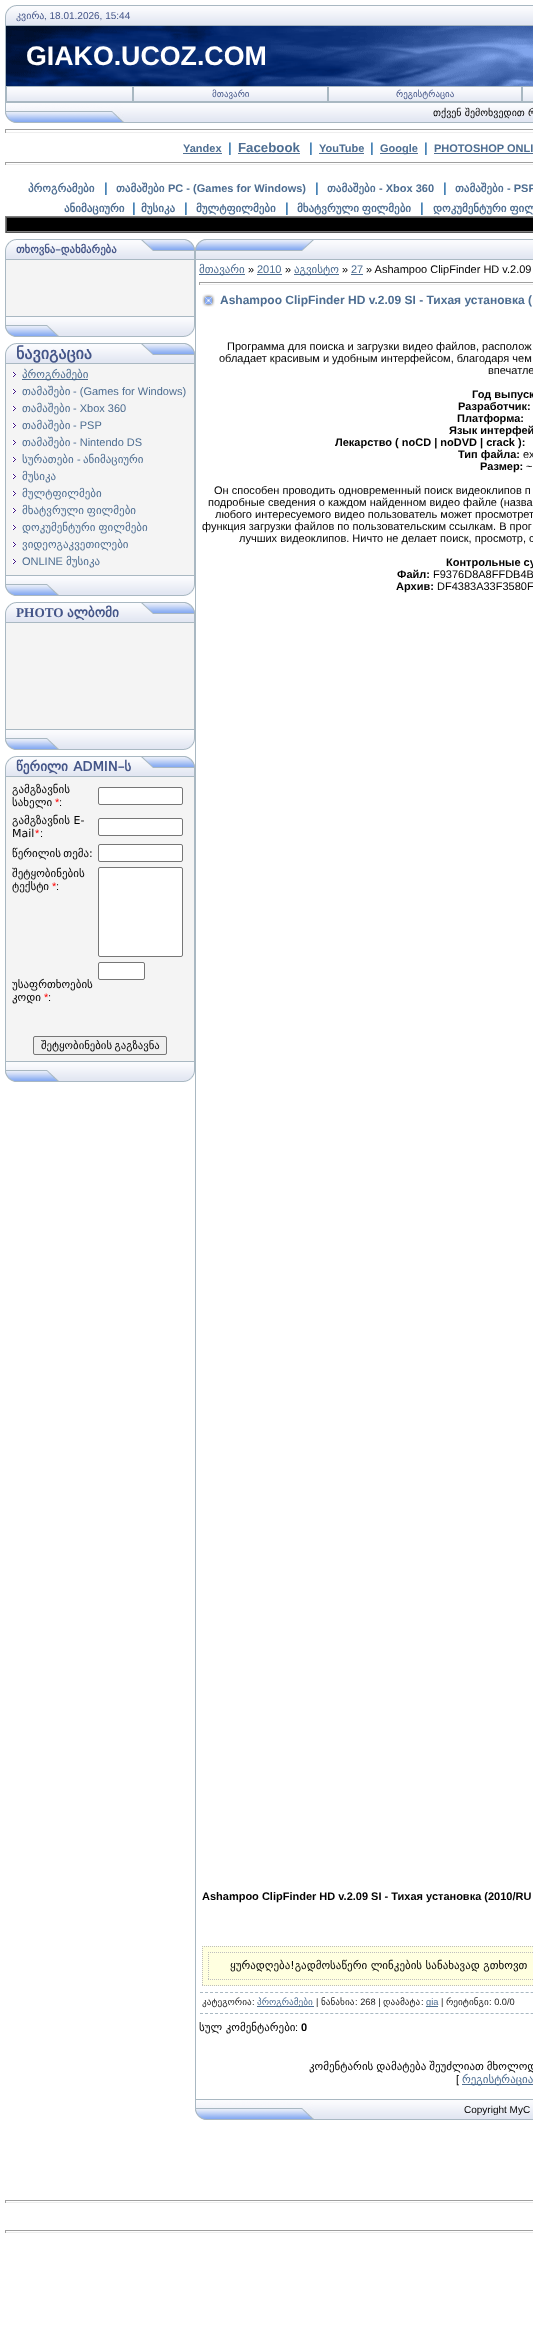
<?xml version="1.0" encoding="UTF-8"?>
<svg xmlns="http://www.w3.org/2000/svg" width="533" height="2339">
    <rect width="100%" height="100%" fill="#FFFFFF"/>
    <image x="5" y="5" width="11" height="21" href="img_01.png"/>
    <image x="16" y="5" width="517" height="21" href="img_02.png"/>
    <text x="16" y="19" font-family="DejaVu Sans" font-size="10" fill="#445588">კვირა</text>
    <text x="44" y="19" font-family="Liberation Sans" font-size="10" fill="#445588">, 18.01.2026, 15:44</text>
    <rect x="5" y="26" width="1" height="76" fill="#A9B8C2"/>
    <image x="6" y="26" width="527" height="60" href="img_03.png"/>
    <text x="26" y="65" font-family="Liberation Sans" font-size="26.75" font-weight="700" fill="#FFFFFF">GIAKO.UCOZ.COM</text>
    <image x="7" y="87" width="125" height="14" href="img_04.png"/>
    <rect x="6.5" y="86.5" width="126" height="15" fill="none" stroke="#A9B8C2"/>
    <image x="134" y="87" width="193" height="14" href="img_05.png"/>
    <rect x="133.5" y="86.5" width="194" height="15" fill="none" stroke="#A9B8C2"/>
    <text x="212" y="97" font-family="DejaVu Sans" font-size="9" fill="#445588">მთავარი</text>
    <image x="329" y="87" width="192" height="14" href="img_06.png"/>
    <rect x="328.5" y="86.5" width="193" height="15" fill="none" stroke="#A9B8C2"/>
    <text x="396" y="97" font-family="DejaVu Sans" font-size="9" fill="#445588">რეგისტრაცია</text>
    <image x="523" y="87" width="10" height="14" href="img_07.png"/>
    <rect x="522.5" y="86.5" width="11" height="15" fill="none" stroke="#A9B8C2"/>
    <image x="5" y="102" width="119" height="21" href="img_08.png"/>
    <image x="124" y="102" width="409" height="21" href="img_09.png"/>
    <text x="433" y="116" font-family="DejaVu Sans" font-size="10" fill="#000000">თქვენ შემოხვედით რ</text>
    <rect x="5" y="129" width="528" height="1" fill="#9F9F9F"/>
    <rect x="5" y="132" width="528" height="1" fill="#EEEEEE"/>
    <rect x="5" y="129" width="1" height="4" fill="#9F9F9F"/>
    <text x="183" y="152" font-family="Liberation Sans" font-size="11" font-weight="700" fill="#4D6D91">Yandex</text>
    <rect x="183" y="153" width="39" height="1" fill="#4D6D91"/>
    <text x="228" y="152" font-family="Liberation Sans" font-size="13.25" font-weight="700" fill="#4682B4">|</text>
    <text x="238" y="152" font-family="Liberation Sans" font-size="13.25" font-weight="700" fill="#4D6D91">Facebook</text>
    <rect x="238" y="153" width="62" height="1" fill="#4D6D91"/>
    <text x="309" y="152" font-family="Liberation Sans" font-size="13.25" font-weight="700" fill="#4682B4">|</text>
    <text x="319" y="152" font-family="Liberation Sans" font-size="11" font-weight="700" fill="#4D6D91">YouTube</text>
    <rect x="319" y="153" width="45" height="1" fill="#4D6D91"/>
    <text x="370" y="152" font-family="Liberation Sans" font-size="13.25" font-weight="700" fill="#4682B4">|</text>
    <rect x="380" y="153" width="38" height="1" fill="#4D6D91"/>
    <text x="380" y="152" font-family="Liberation Sans" font-size="11" font-weight="700" fill="#4D6D91">Google</text>
    <text x="424" y="152" font-family="Liberation Sans" font-size="13.25" font-weight="700" fill="#4682B4">|</text>
    <text x="434" y="152" font-family="Liberation Sans" font-size="11" font-weight="700" fill="#4D6D91">PHOTOSHOP ONLI</text>
    <rect x="434" y="153" width="99" height="1" fill="#4D6D91"/>
    <rect x="5" y="162" width="528" height="1" fill="#9F9F9F"/>
    <rect x="5" y="164" width="528" height="1" fill="#EEEEEE"/>
    <rect x="5" y="162" width="1" height="3" fill="#9F9F9F"/>
    <text x="28" y="192" font-family="DejaVu Sans" font-size="11" font-weight="700" fill="#4D6D91">პროგრამები</text>
    <text x="104" y="192" font-family="Liberation Sans" font-size="13.25" font-weight="700" fill="#4682B4">|</text>
    <text x="116" y="192" font-family="DejaVu Sans" font-size="11" font-weight="700" fill="#4D6D91">თამაშები</text>
    <text x="168" y="192" font-family="Liberation Sans" font-size="11" font-weight="700" fill="#4D6D91">PC - (Games for Windows)</text>
    <text x="315" y="192" font-family="Liberation Sans" font-size="13.25" font-weight="700" fill="#4682B4">|</text>
    <text x="327" y="192" font-family="DejaVu Sans" font-size="11" font-weight="700" fill="#4D6D91">თამაშები</text>
    <text x="379" y="192" font-family="Liberation Sans" font-size="11" font-weight="700" fill="#4D6D91">- Xbox 360</text>
    <text x="443" y="192" font-family="Liberation Sans" font-size="13.25" font-weight="700" fill="#4682B4">|</text>
    <text x="455" y="192" font-family="DejaVu Sans" font-size="11" font-weight="700" fill="#4D6D91">თამაშები</text>
    <text x="507" y="192" font-family="Liberation Sans" font-size="11" font-weight="700" fill="#4D6D91">- PSP</text>
    <text x="64" y="212" font-family="DejaVu Sans" font-size="11" font-weight="700" fill="#4D6D91">ანიმაციური</text>
    <text x="132" y="212" font-family="Liberation Sans" font-size="13.25" font-weight="700" fill="#4682B4">|</text>
    <text x="141" y="212" font-family="DejaVu Sans" font-size="11" font-weight="700" fill="#4D6D91">მუსიკა</text>
    <text x="184" y="212" font-family="Liberation Sans" font-size="13.25" font-weight="700" fill="#4682B4">|</text>
    <text x="196" y="212" font-family="DejaVu Sans" font-size="11" font-weight="700" fill="#4D6D91">მულტფილმები</text>
    <text x="285" y="212" font-family="Liberation Sans" font-size="13.25" font-weight="700" fill="#4682B4">|</text>
    <text x="297" y="212" word-spacing="-0.5" font-family="DejaVu Sans" font-size="11" font-weight="700" fill="#4D6D91">მხატვრული ფილმები</text>
    <text x="420" y="212" font-family="Liberation Sans" font-size="13.25" font-weight="700" fill="#4682B4">|</text>
    <text x="433" y="212" word-spacing="-0.5" font-family="DejaVu Sans" font-size="11" font-weight="700" fill="#4D6D91">დოკუმენტური ფილ</text>
    <rect x="7" y="218" width="526" height="13" fill="#000000"/>
    <rect x="5" y="216" width="528" height="1" fill="#808080"/>
    <rect x="5" y="232" width="528" height="1" fill="#555555"/>
    <rect x="5" y="216" width="1" height="17" fill="#808080"/>
    <rect x="6" y="217" width="527" height="1" fill="#555555"/>
    <rect x="6" y="231" width="527" height="1" fill="#808080"/>
    <rect x="6" y="217" width="1" height="15" fill="#555555"/>
    <image x="5" y="239" width="11" height="21" href="img_01.png"/>
    <image x="16" y="239" width="125" height="21" href="img_10.png"/>
    <text x="16" y="253" font-family="DejaVu Sans" font-size="10.75" font-weight="700" fill="#445588">თხოვნა–დახმარება</text>
    <image x="141" y="239" width="54" height="21" href="img_11.png"/>
    <rect x="6" y="260" width="188" height="56" fill="#F4F4F4"/>
    <rect x="194" y="260" width="1" height="56" fill="#A9B8C2"/>
    <rect x="5" y="260" width="1" height="56" fill="#A9B8C2"/>
    <image x="5" y="316" width="190" height="21" href="img_12.png"/>
    <image x="5" y="343" width="11" height="21" href="img_01.png"/>
    <image x="16" y="343" width="125" height="21" href="img_10.png"/>
    <text x="16" y="359" font-family="DejaVu Sans" font-size="16" font-weight="700" fill="#445588">ნავიგაცია</text>
    <image x="141" y="343" width="54" height="21" href="img_11.png"/>
    <rect x="6" y="364" width="188" height="211" fill="#F4F4F4"/>
    <rect x="194" y="364" width="1" height="211" fill="#A9B8C2"/>
    <rect x="5" y="364" width="1" height="211" fill="#A9B8C2"/>
    <image x="12" y="372" width="4" height="5" href="img_13.png"/>
    <rect x="22" y="379" width="66" height="1" fill="#4D6D91"/>
    <text x="22" y="378" font-family="DejaVu Sans" font-size="11" fill="#4D6D91">პროგრამები</text>
    <image x="12" y="389" width="4" height="5" href="img_13.png"/>
    <text x="22" y="395" font-family="DejaVu Sans" font-size="11" fill="#4D6D91">თამაშები</text>
    <text x="73" y="395" font-family="Liberation Sans" font-size="11" fill="#4D6D91">- (Games for Windows)</text>
    <image x="12" y="406" width="4" height="5" href="img_13.png"/>
    <text x="22" y="412" font-family="DejaVu Sans" font-size="11" fill="#4D6D91">თამაშები</text>
    <text x="73" y="412" font-family="Liberation Sans" font-size="11" fill="#4D6D91">- Xbox 360</text>
    <image x="12" y="423" width="4" height="5" href="img_13.png"/>
    <text x="22" y="429" font-family="DejaVu Sans" font-size="11" fill="#4D6D91">თამაშები</text>
    <text x="73" y="429" font-family="Liberation Sans" font-size="11" fill="#4D6D91">- PSP</text>
    <image x="12" y="440" width="4" height="5" href="img_13.png"/>
    <text x="22" y="446" font-family="DejaVu Sans" font-size="11" fill="#4D6D91">თამაშები</text>
    <text x="73" y="446" font-family="Liberation Sans" font-size="11" fill="#4D6D91">- Nintendo DS</text>
    <image x="12" y="457" width="4" height="5" href="img_13.png"/>
    <text x="22" y="463" font-family="DejaVu Sans" font-size="11" fill="#4D6D91">სურათები</text>
    <text x="77" y="463" font-family="Liberation Sans" font-size="11" fill="#4D6D91">-</text>
    <text x="83" y="463" font-family="DejaVu Sans" font-size="11" fill="#4D6D91">ანიმაციური</text>
    <image x="12" y="474" width="4" height="5" href="img_13.png"/>
    <text x="22" y="480" font-family="DejaVu Sans" font-size="11" fill="#4D6D91">მუსიკა</text>
    <image x="12" y="491" width="4" height="5" href="img_13.png"/>
    <text x="22" y="497" font-family="DejaVu Sans" font-size="11" fill="#4D6D91">მულტფილმები</text>
    <image x="12" y="508" width="4" height="5" href="img_13.png"/>
    <text x="22" y="514" word-spacing="-0.5" font-family="DejaVu Sans" font-size="11" fill="#4D6D91">მხატვრული ფილმები</text>
    <image x="12" y="525" width="4" height="5" href="img_13.png"/>
    <text x="22" y="531" word-spacing="-0.5" font-family="DejaVu Sans" font-size="11" fill="#4D6D91">დოკუმენტური ფილმები</text>
    <image x="12" y="542" width="4" height="5" href="img_13.png"/>
    <text x="22" y="548" font-family="DejaVu Sans" font-size="11" fill="#4D6D91">ვიდეოგაკვეთილები</text>
    <image x="12" y="559" width="4" height="5" href="img_13.png"/>
    <text x="22" y="565" font-family="Liberation Sans" font-size="11" fill="#4D6D91">ONLINE</text>
    <text x="66" y="565" font-family="DejaVu Sans" font-size="11" fill="#4D6D91">მუსიკა</text>
    <image x="5" y="575" width="190" height="21" href="img_12.png"/>
    <image x="5" y="602" width="11" height="21" href="img_01.png"/>
    <image x="16" y="602" width="125" height="21" href="img_10.png"/>
    <text x="16" y="617" font-family="Liberation Serif" font-size="13.25" font-weight="700" fill="#445588">PHOTO</text>
    <text x="67" y="617" font-family="DejaVu Sans" font-size="13.25" font-weight="700" fill="#445588">ალბომი</text>
    <image x="141" y="602" width="54" height="21" href="img_11.png"/>
    <rect x="6" y="623" width="188" height="106" fill="#F4F4F4"/>
    <rect x="194" y="623" width="1" height="106" fill="#A9B8C2"/>
    <rect x="5" y="623" width="1" height="106" fill="#A9B8C2"/>
    <image x="5" y="729" width="190" height="21" href="img_12.png"/>
    <image x="5" y="756" width="11" height="21" href="img_01.png"/>
    <image x="16" y="756" width="125" height="21" href="img_10.png"/>
    <text x="16" y="771" word-spacing="1" font-family="DejaVu Sans" font-size="13.25" font-weight="700" fill="#445588">წერილი ADMIN–ს</text>
    <image x="141" y="756" width="54" height="21" href="img_11.png"/>
    <rect x="6" y="777" width="188" height="284" fill="#F4F4F4"/>
    <rect x="194" y="777" width="1" height="284" fill="#A9B8C2"/>
    <rect x="5" y="777" width="1" height="284" fill="#A9B8C2"/>
    <text font-family="DejaVu Sans" font-size="11" fill="#000000">
        <tspan x="12" y="793">გამგზავნის</tspan>
        <tspan x="12" y="806">სახელი</tspan>
    </text>
    <text x="55" y="806" font-family="Liberation Sans" font-size="11" fill="#FF0000">*</text>
    <text x="59" y="806" font-family="Liberation Sans" font-size="11" fill="#000000">:</text>
    <rect x="98.5" y="787.5" width="84" height="17" rx="1.5" fill="#FFFFFF" stroke="#767676"/>
    <text font-family="DejaVu Sans" font-size="11" fill="#000000">
        <tspan x="12" y="824">გამგზავნის E-</tspan>
        <tspan x="12" y="837">Mail</tspan>
    </text>
    <text x="35" y="837" font-family="Liberation Sans" font-size="11" fill="#FF0000">*</text>
    <text x="40" y="837" font-family="Liberation Sans" font-size="11" fill="#000000">:</text>
    <rect x="98.5" y="818.5" width="84" height="17" rx="1.5" fill="#FFFFFF" stroke="#767676"/>
    <text x="12" y="857" word-spacing="-1" font-family="DejaVu Sans" font-size="11" fill="#000000">წერილის თემა:</text>
    <rect x="98.5" y="844.5" width="84" height="17" rx="1.5" fill="#FFFFFF" stroke="#767676"/>
    <text font-family="DejaVu Sans" font-size="11" fill="#000000">
        <tspan x="12" y="877">შეტყობინების</tspan>
        <tspan x="12" y="890">ტექსტი</tspan>
    </text>
    <text x="52" y="890" font-family="Liberation Sans" font-size="11" fill="#FF0000">*</text>
    <text x="56" y="890" font-family="Liberation Sans" font-size="11" fill="#000000">:</text>
    <rect x="98.5" y="867.5" width="84" height="89" rx="1.5" fill="#FFFFFF" stroke="#767676"/>
    <rect x="98.5" y="962.5" width="46" height="17" rx="1.5" fill="#FFFFFF" stroke="#767676"/>
    <text font-family="DejaVu Sans" font-size="11" fill="#000000">
        <tspan x="12" y="988">უსაფრთხოების</tspan>
        <tspan x="12" y="1001">კოდი</tspan>
    </text>
    <text x="44" y="1001" font-family="Liberation Sans" font-size="11" fill="#FF0000">*</text>
    <text x="48" y="1001" font-family="Liberation Sans" font-size="11" fill="#000000">:</text>
    <rect x="33.5" y="1036.5" width="133" height="18" rx="1.5" fill="#EFEFEF" stroke="#767676"/>
    <text x="41" y="1049" word-spacing="-1" font-family="DejaVu Sans" font-size="10.75" fill="#000000">შეტყობინების გაგზავნა</text>
    <image x="5" y="1061" width="190" height="21" href="img_12.png"/>
    <image x="195" y="239" width="119" height="21" href="img_14.png"/>
    <image x="314" y="239" width="219" height="21" href="img_15.png"/>
    <rect x="195" y="260" width="1" height="1839" fill="#A9B8C2"/>
    <rect x="199" y="274" width="46" height="1" fill="#4D6D91"/>
    <text x="199" y="273" font-family="DejaVu Sans" font-size="11" fill="#4D6D91">მთავარი</text>
    <text x="248" y="273" font-family="Liberation Sans" font-size="11" fill="#000000">»</text>
    <text x="257" y="273" font-family="Liberation Sans" font-size="11" fill="#4D6D91">2010</text>
    <rect x="257" y="274" width="25" height="1" fill="#4D6D91"/>
    <text x="285" y="273" font-family="Liberation Sans" font-size="11" fill="#000000">»</text>
    <rect x="294" y="274" width="45" height="1" fill="#4D6D91"/>
    <text x="294" y="273" font-family="DejaVu Sans" font-size="11" fill="#4D6D91">აგვისტო</text>
    <text x="342" y="273" font-family="Liberation Sans" font-size="11" fill="#000000">»</text>
    <text x="351" y="273" font-family="Liberation Sans" font-size="11" fill="#4D6D91">27</text>
    <rect x="351" y="274" width="12" height="1" fill="#4D6D91"/>
    <text x="366" y="273" font-family="Liberation Sans" font-size="11" fill="#000000">» Ashampoo ClipFinder HD v.2.09</text>
    <rect x="199" y="282" width="334" height="1" fill="#9F9F9F"/>
    <rect x="199" y="284" width="334" height="1" fill="#EEEEEE"/>
    <rect x="199" y="282" width="1" height="3" fill="#9F9F9F"/>
    <image x="202" y="294" width="13" height="13" href="img_16.png"/>
    <text x="220" y="304" font-family="Liberation Sans" font-size="12" font-weight="700" fill="#4D6D91">Ashampoo ClipFinder HD v.2.09 SI - Тихая установка (</text>
    <text x="227" y="350" font-family="Liberation Sans" font-size="11" fill="#000000">Программа для поиска и загрузки видео файлов, располож</text>
    <text x="219" y="362" font-family="Liberation Sans" font-size="11" fill="#000000">обладает красивым и удобным интерфейсом, благодаря чем</text>
    <text x="488" y="374" font-family="Liberation Sans" font-size="11" fill="#000000">впечатле</text>
    <text x="472" y="398" font-family="Liberation Sans" font-size="11" font-weight="700" fill="#000000">Год выпуск</text>
    <text x="458" y="410" font-family="Liberation Sans" font-size="11" font-weight="700" fill="#000000">Разработчик:</text>
    <text x="457" y="422" font-family="Liberation Sans" font-size="11" font-weight="700" fill="#000000">Платформа:</text>
    <text x="449" y="434" font-family="Liberation Sans" font-size="11" font-weight="700" fill="#000000">Язык интерфей</text>
    <text x="335" y="446" font-family="Liberation Sans" font-size="11" font-weight="700" fill="#000000">Лекарство ( noCD | noDVD | crack ):</text>
    <text x="458" y="458" font-family="Liberation Sans" font-size="11" font-weight="700" fill="#000000">Тип файла:</text>
    <text x="523" y="458" font-family="Liberation Sans" font-size="11" fill="#000000">ex</text>
    <text x="480" y="470" font-family="Liberation Sans" font-size="11" font-weight="700" fill="#000000">Размер:</text>
    <text x="526" y="470" font-family="Liberation Sans" font-size="11" fill="#000000">~</text>
    <text x="214" y="494" font-family="Liberation Sans" font-size="11" fill="#000000">Он способен проводить одновременный поиск видеоклипов п</text>
    <text x="208" y="506" font-family="Liberation Sans" font-size="11" fill="#000000">подробные сведения о каждом найденном видео файле (назва</text>
    <text x="215" y="518" font-family="Liberation Sans" font-size="11" fill="#000000">любого интересуемого видео пользователь может просмотрет</text>
    <text x="202" y="530" font-family="Liberation Sans" font-size="11" fill="#000000">функция загрузки файлов по пользовательским ссылкам. В прог</text>
    <text x="239" y="542" font-family="Liberation Sans" font-size="11" fill="#000000">лучших видеоклипов. Ничто не делает поиск, просмотр, с</text>
    <text x="446" y="566" font-family="Liberation Sans" font-size="11" font-weight="700" fill="#000000">Контрольные су</text>
    <text x="397" y="578" font-family="Liberation Sans" font-size="11" font-weight="700" fill="#000000">Файл:</text>
    <text x="433" y="578" font-family="Liberation Sans" font-size="11" fill="#000000">F9376D8A8FFDB4B</text>
    <text x="396" y="590" font-family="Liberation Sans" font-size="11" font-weight="700" fill="#000000">Архив:</text>
    <text x="437" y="590" font-family="Liberation Sans" font-size="11" fill="#000000">DF4383A33F3580F</text>
    <text x="202" y="1900" font-family="Liberation Sans" font-size="11" font-weight="700" fill="#000000">Ashampoo ClipFinder HD v.2.09 SI - Тихая установка (2010/RU</text>
    <rect x="202" y="1946" width="331" height="40" fill="#FFFFE0"/>
    <path d="M 202 1946.5 H 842" fill="none" stroke="#BEBEBE" stroke-dasharray="1 1"/>
    <path d="M 202 1985.5 H 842" fill="none" stroke="#BEBEBE" stroke-dasharray="1 1"/>
    <path d="M 202.5 1946 V 1986" fill="none" stroke="#BEBEBE" stroke-dasharray="1 1"/>
    <path d="M 208 1952.5 H 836" fill="none" stroke="#BEBEBE" stroke-dasharray="1 1"/>
    <path d="M 208 1979.5 H 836" fill="none" stroke="#BEBEBE" stroke-dasharray="1 1"/>
    <path d="M 208.5 1952 V 1980" fill="none" stroke="#BEBEBE" stroke-dasharray="1 1"/>
    <text x="230" y="1969" font-family="DejaVu Sans" font-size="11" fill="#000000">ყურადღება!გადმოსაწერი ლინკების სანახავად გთხოვთ</text>
    <path d="M 200 1992.5 H 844" fill="none" stroke="#A9B8C2" stroke-dasharray="3 2.01"/>
    <path d="M 200 2013.5 H 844" fill="none" stroke="#A9B8C2" stroke-dasharray="3 2.01"/>
    <text x="202" y="2005" font-family="DejaVu Sans" font-size="9.25" fill="#1A1A1A">კატეგორია</text>
    <text x="252" y="2005" font-family="Liberation Sans" font-size="9.25" fill="#1A1A1A">:</text>
    <rect x="257" y="2006" width="57" height="1" fill="#4D6D91"/>
    <text x="257" y="2005" font-family="DejaVu Sans" font-size="9.25" fill="#4D6D91">პროგრამები</text>
    <text x="316" y="2005" font-family="Liberation Sans" font-size="9.25" fill="#1A1A1A">|</text>
    <text x="321" y="2005" font-family="DejaVu Sans" font-size="9.25" fill="#1A1A1A">ნანახია</text>
    <text x="355" y="2005" font-family="Liberation Sans" font-size="9.25" fill="#1A1A1A">: 268 |</text>
    <text x="383" y="2005" font-family="DejaVu Sans" font-size="9.25" fill="#1A1A1A">დაამატა</text>
    <text x="421" y="2005" font-family="Liberation Sans" font-size="9.25" fill="#1A1A1A">:</text>
    <rect x="426" y="2006" width="12" height="1" fill="#4D6D91"/>
    <text x="426" y="2005" font-family="Liberation Sans" font-size="9.25" fill="#4D6D91">gia</text>
    <text x="441" y="2005" font-family="Liberation Sans" font-size="9.25" fill="#1A1A1A">|</text>
    <text x="446" y="2005" font-family="DejaVu Sans" font-size="9.25" fill="#1A1A1A">რეიტინგი</text>
    <text x="489" y="2005" font-family="Liberation Sans" font-size="9.25" fill="#1A1A1A">: 0.0/0</text>
    <text x="199" y="2031" font-family="DejaVu Sans" font-size="11" fill="#000000">სულ კომენტარები</text>
    <text x="295" y="2031" font-family="Liberation Sans" font-size="11" fill="#000000">:</text>
    <text x="301" y="2031" font-family="Liberation Sans" font-size="11" font-weight="700" fill="#000000">0</text>
    <text x="309" y="2070" word-spacing="-0.5" font-family="DejaVu Sans" font-size="11" fill="#000000">კომენტარის დამატება შეუძლიათ მხოლოდ</text>
    <text x="456" y="2083" font-family="Liberation Sans" font-size="11" fill="#000000">[</text>
    <rect x="462" y="2084" width="71" height="1" fill="#4D6D91"/>
    <text x="462" y="2083" font-family="DejaVu Sans" font-size="11" fill="#4D6D91">რეგისტრაცია</text>
    <image x="195" y="2099" width="119" height="21" href="img_08.png"/>
    <image x="314" y="2099" width="219" height="21" href="img_15.png"/>
    <text x="464" y="2113" font-family="Liberation Sans" font-size="10" fill="#000000">Copyright MyC</text>
    <rect x="5" y="2200" width="528" height="1" fill="#9F9F9F"/>
    <rect x="5" y="2202" width="528" height="1" fill="#EEEEEE"/>
    <rect x="5" y="2200" width="1" height="3" fill="#9F9F9F"/>
    <rect x="5" y="2230" width="528" height="1" fill="#9F9F9F"/>
    <rect x="5" y="2232" width="528" height="1" fill="#EEEEEE"/>
    <rect x="5" y="2230" width="1" height="3" fill="#9F9F9F"/>
</svg>
